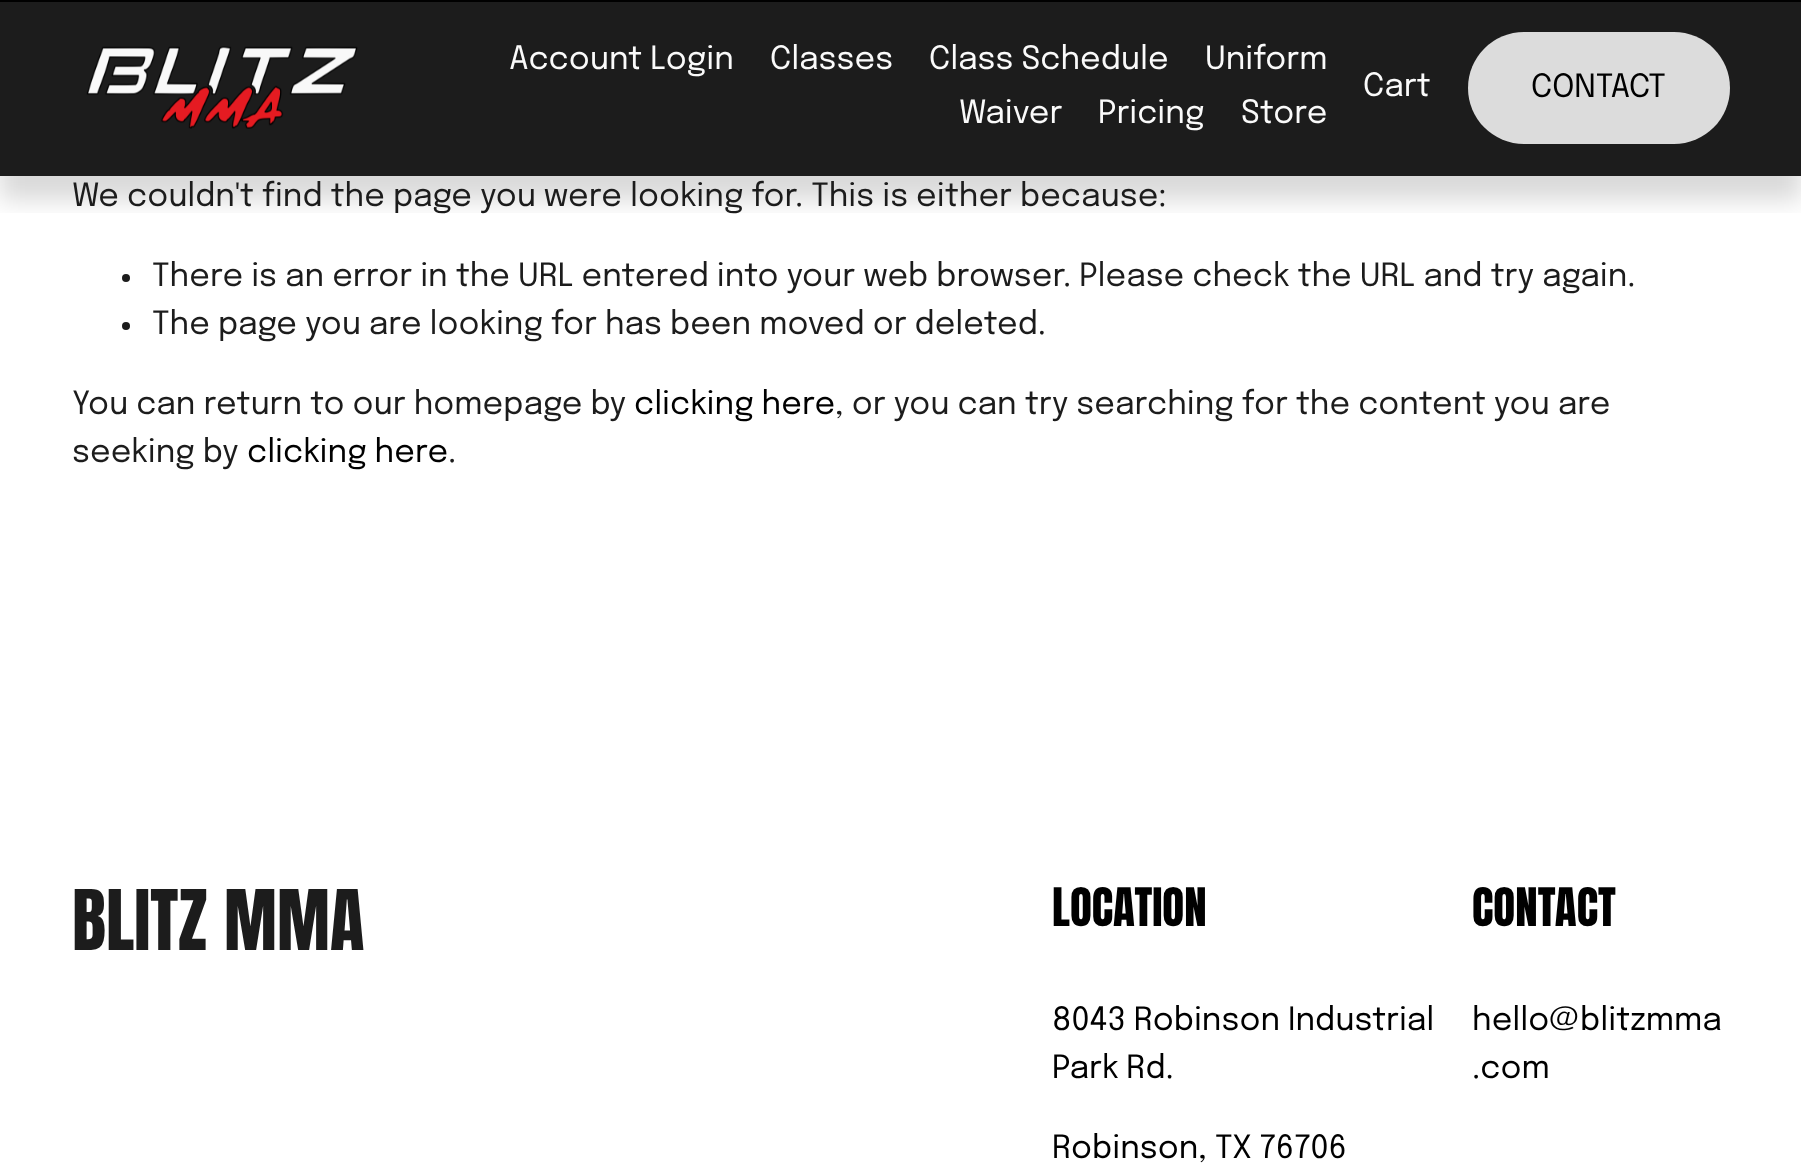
<?xml version="1.0" encoding="UTF-8"?>
<svg xmlns="http://www.w3.org/2000/svg" width="1801" height="1163">
    <defs>
        <clipPath id="clip1"><rect x="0" y="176" width="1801" height="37"/></clipPath>
        <filter id="blur1" x="-50%" y="-200%" width="200%" height="500%"><feGaussianBlur stdDeviation="12"/></filter>
    </defs>
    <rect width="100%" height="100%" fill="#FFFFFF"/>
    <rect x="0" y="2" width="1801" height="174" fill="#1C1C1C"/>
    <g clip-path="url(#clip1)">
        <rect x="0" y="24" width="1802" height="176" fill="#000000" fill-opacity="0.15" filter="url(#blur1)"/>
    </g>
    <rect x="0" y="0" width="1801" height="2" fill="#000000"/>
    <image x="86" y="46" width="272" height="83" href="img_01.png"/>
    <text x="509" y="69" font-family="Epilogue" font-size="32" fill="#FAFAFA">Account Login</text>
    <text x="770" y="69" font-family="Epilogue" font-size="32" fill="#FAFAFA">Classes</text>
    <text x="929" y="69" font-family="Epilogue" font-size="32" fill="#FAFAFA">Class Schedule</text>
    <text x="1205" y="69" font-family="Epilogue" font-size="32" fill="#FAFAFA">Uniform</text>
    <text x="959" y="123" font-family="Epilogue" font-size="32" fill="#FAFAFA">Waiver</text>
    <text x="1098" y="123" font-family="Epilogue" font-size="32" fill="#FAFAFA">Pricing</text>
    <text x="1241" y="123" font-family="Epilogue" font-size="32" fill="#FAFAFA">Store</text>
    <text x="1363" y="96" font-family="Epilogue" font-size="32" fill="#FAFAFA">Cart</text>
    <rect x="1468" y="32" width="262" height="112" rx="56" fill="#DCDCDC"/>
    <text x="1531" y="97" font-family="Epilogue" font-size="32" fill="#000000">CONTACT</text>
    <text x="72" y="206" font-family="Epilogue" font-size="32" fill="#1C1C1C">We couldn't find the page you were looking for. This is either because:</text>
    <circle cx="126" cy="278" r="4" fill="#1C1C1C"/>
    <text x="152" y="286" font-family="Epilogue" font-size="32" fill="#1C1C1C">There is an error in the URL entered into your web browser. Please check the URL and try again.</text>
    <circle cx="126" cy="326" r="4" fill="#1C1C1C"/>
    <text x="152" y="334" font-family="Epilogue" font-size="32" fill="#1C1C1C">The page you are looking for has been moved or deleted.</text>
    <text x="72" y="414" font-family="Epilogue" font-size="32" fill="#1C1C1C">You can return to our homepage by</text>
    <text x="634" y="414" font-family="Epilogue" font-size="32" fill="#000000">clicking here</text>
    <text x="835" y="414" font-family="Epilogue" font-size="32" fill="#1C1C1C">, or you can try searching for the content you are</text>
    <text x="72" y="462" font-family="Epilogue" font-size="32" fill="#1C1C1C">seeking by</text>
    <text x="247" y="462" font-family="Epilogue" font-size="32" fill="#000000">clicking here</text>
    <text x="448" y="462" font-family="Epilogue" font-size="32" fill="#1C1C1C">.</text>
    <text x="72" y="950" font-family="Anton" font-size="71" fill="#1C1C1C">BLITZ MMA</text>
    <text x="1052" y="926" font-family="Anton" font-size="45" fill="#000000">LOCATION</text>
    <text font-family="Epilogue" font-size="32" fill="#000000">
        <tspan x="1052" y="1030">8043 Robinson Industrial</tspan>
        <tspan x="1052" y="1078">Park Rd.</tspan>
    </text>
    <text x="1052" y="1158" font-family="Epilogue" font-size="32" fill="#000000">Robinson, TX 76706</text>
    <text x="1472" y="926" font-family="Anton" font-size="45" fill="#000000">CONTACT</text>
    <text font-family="Epilogue" font-size="32" fill="#000000">
        <tspan x="1472" y="1030">hello@blitzmma</tspan>
        <tspan x="1472" y="1078">.com</tspan>
    </text>
</svg>
